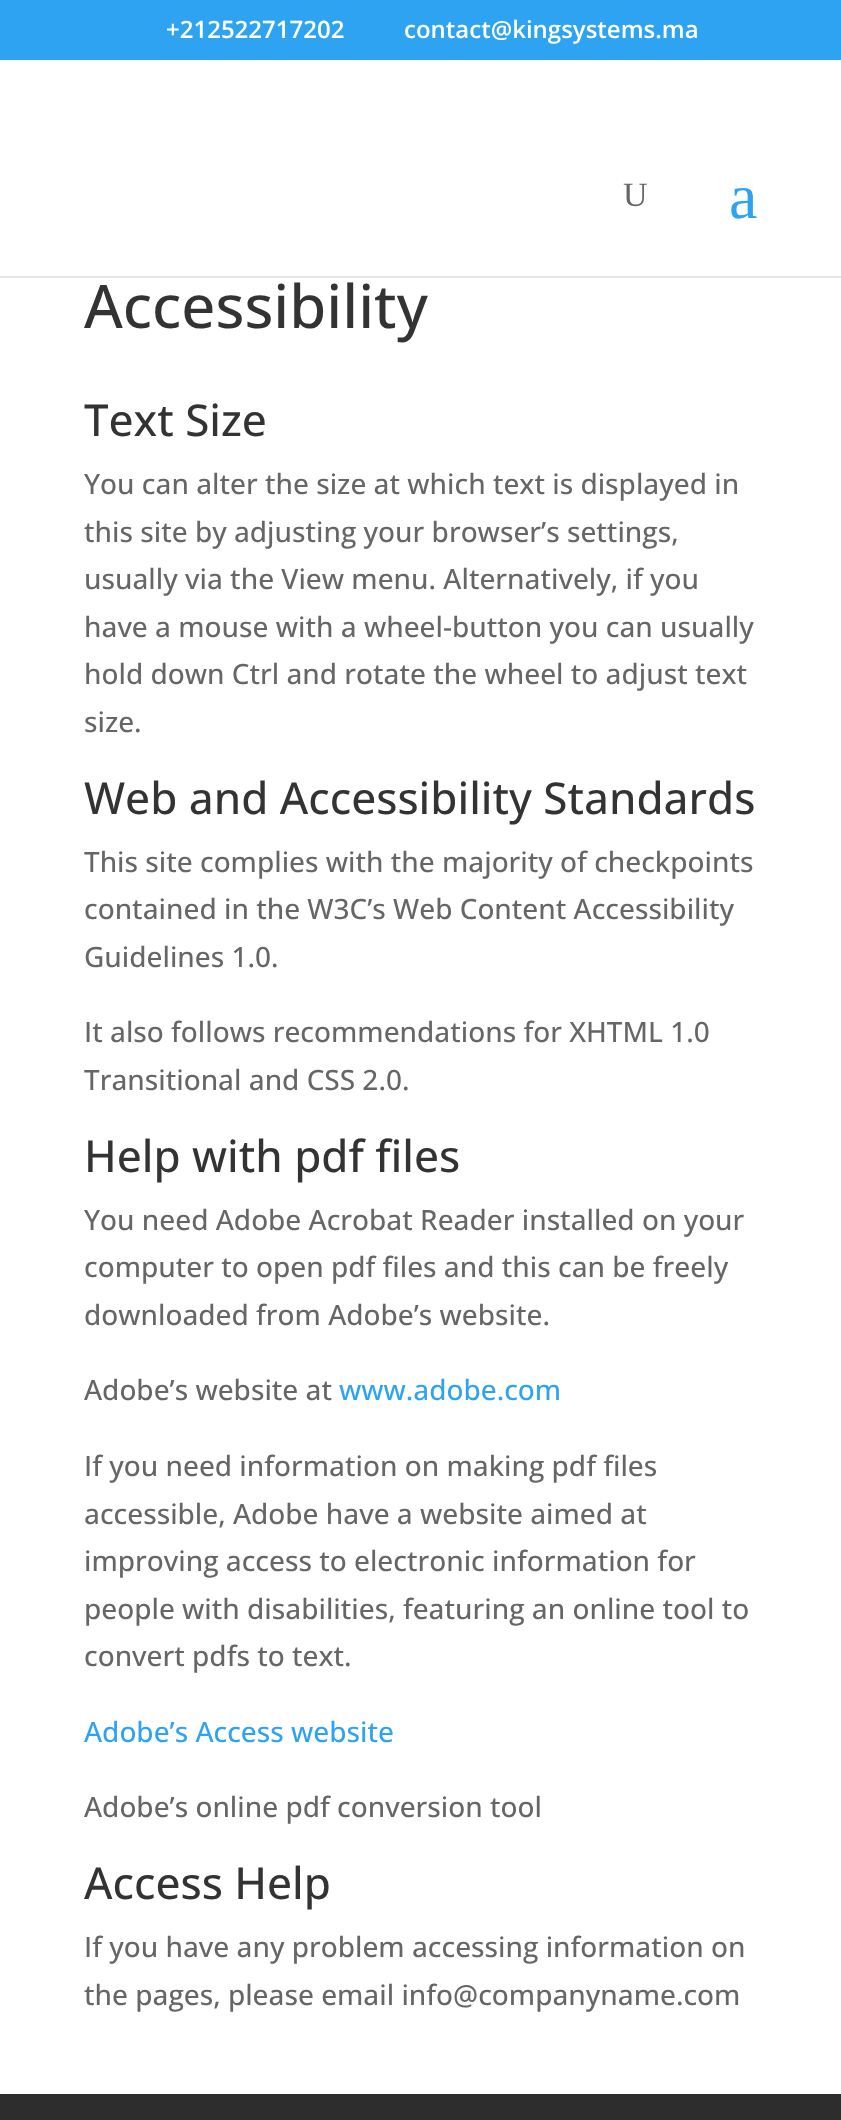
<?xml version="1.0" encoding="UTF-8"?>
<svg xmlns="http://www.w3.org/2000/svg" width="841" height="2120">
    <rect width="100%" height="100%" fill="#FFFFFF"/>
    <rect x="0" y="0" width="841" height="60" fill="#2EA3F2"/>
    <text x="166" y="38" font-family="Open Sans" font-size="24" font-weight="600" fill="#FFFFFF">+212522717202</text>
    <text x="404" y="38" font-family="Open Sans" font-size="24" font-weight="600" fill="#FFFFFF">contact@kingsystems.ma</text>
    <rect x="0" y="276" width="841" height="2" fill="#E6E6E6"/>
    <text x="623" y="206" font-family="Liberation Serif" font-size="34" fill="#666666">U</text>
    <text x="729" y="218" font-family="Liberation Serif" font-size="64" fill="#2EA3F2">a</text>
    <text x="84" y="328" font-family="Open Sans" font-size="60" font-weight="500" fill="#333333">Accessibility</text>
    <text x="84" y="436" font-family="Open Sans" font-size="44" font-weight="500" fill="#333333">Text Size</text>
    <text font-family="Open Sans" font-size="28" font-weight="500" fill="#666666">
        <tspan x="84" y="494">You can alter the size at which text is displayed in</tspan>
        <tspan x="84" y="542">this site by adjusting your browser’s settings,</tspan>
        <tspan x="84" y="589">usually via the View menu. Alternatively, if you</tspan>
        <tspan x="84" y="637">have a mouse with a wheel-button you can usually</tspan>
        <tspan x="84" y="684">hold down Ctrl and rotate the wheel to adjust text</tspan>
        <tspan x="84" y="732">size.</tspan>
    </text>
    <text x="84" y="814" font-family="Open Sans" font-size="44" font-weight="500" fill="#333333">Web and Accessibility Standards</text>
    <text font-family="Open Sans" font-size="28" font-weight="500" fill="#666666">
        <tspan x="84" y="872">This site complies with the majority of checkpoints</tspan>
        <tspan x="84" y="919">contained in the W3C’s Web Content Accessibility</tspan>
        <tspan x="84" y="967">Guidelines 1.0.</tspan>
    </text>
    <text font-family="Open Sans" font-size="28" font-weight="500" fill="#666666">
        <tspan x="84" y="1042">It also follows recommendations for XHTML 1.0</tspan>
        <tspan x="84" y="1090">Transitional and CSS 2.0.</tspan>
    </text>
    <text x="84" y="1172" font-family="Open Sans" font-size="44" font-weight="500" fill="#333333">Help with pdf files</text>
    <text font-family="Open Sans" font-size="28" font-weight="500" fill="#666666">
        <tspan x="84" y="1230">You need Adobe Acrobat Reader installed on your</tspan>
        <tspan x="84" y="1277">computer to open pdf files and this can be freely</tspan>
        <tspan x="84" y="1325">downloaded from Adobe’s website.</tspan>
    </text>
    <text x="84" y="1400" font-family="Open Sans" font-size="28" font-weight="500" fill="#666666">Adobe’s website at</text>
    <text x="339" y="1400" font-family="Open Sans" font-size="28" font-weight="500" fill="#2EA3F2">www.adobe.com</text>
    <text font-family="Open Sans" font-size="28" font-weight="500" fill="#666666">
        <tspan x="84" y="1476">If you need information on making pdf files</tspan>
        <tspan x="84" y="1524">accessible, Adobe have a website aimed at</tspan>
        <tspan x="84" y="1571">improving access to electronic information for</tspan>
        <tspan x="84" y="1619">people with disabilities, featuring an online tool to</tspan>
        <tspan x="84" y="1666">convert pdfs to text.</tspan>
    </text>
    <text x="84" y="1742" font-family="Open Sans" font-size="28" font-weight="500" fill="#2EA3F2">Adobe’s Access website</text>
    <text x="84" y="1817" font-family="Open Sans" font-size="28" font-weight="500" fill="#666666">Adobe’s online pdf conversion tool</text>
    <text x="84" y="1899" font-family="Open Sans" font-size="44" font-weight="500" fill="#333333">Access Help</text>
    <text font-family="Open Sans" font-size="28" font-weight="500" fill="#666666">
        <tspan x="84" y="1957">If you have any problem accessing information on</tspan>
        <tspan x="84" y="2005">the pages, please email info@companyname.com</tspan>
    </text>
    <rect x="0" y="2094" width="841" height="26" fill="#2D2D2D"/>
</svg>
